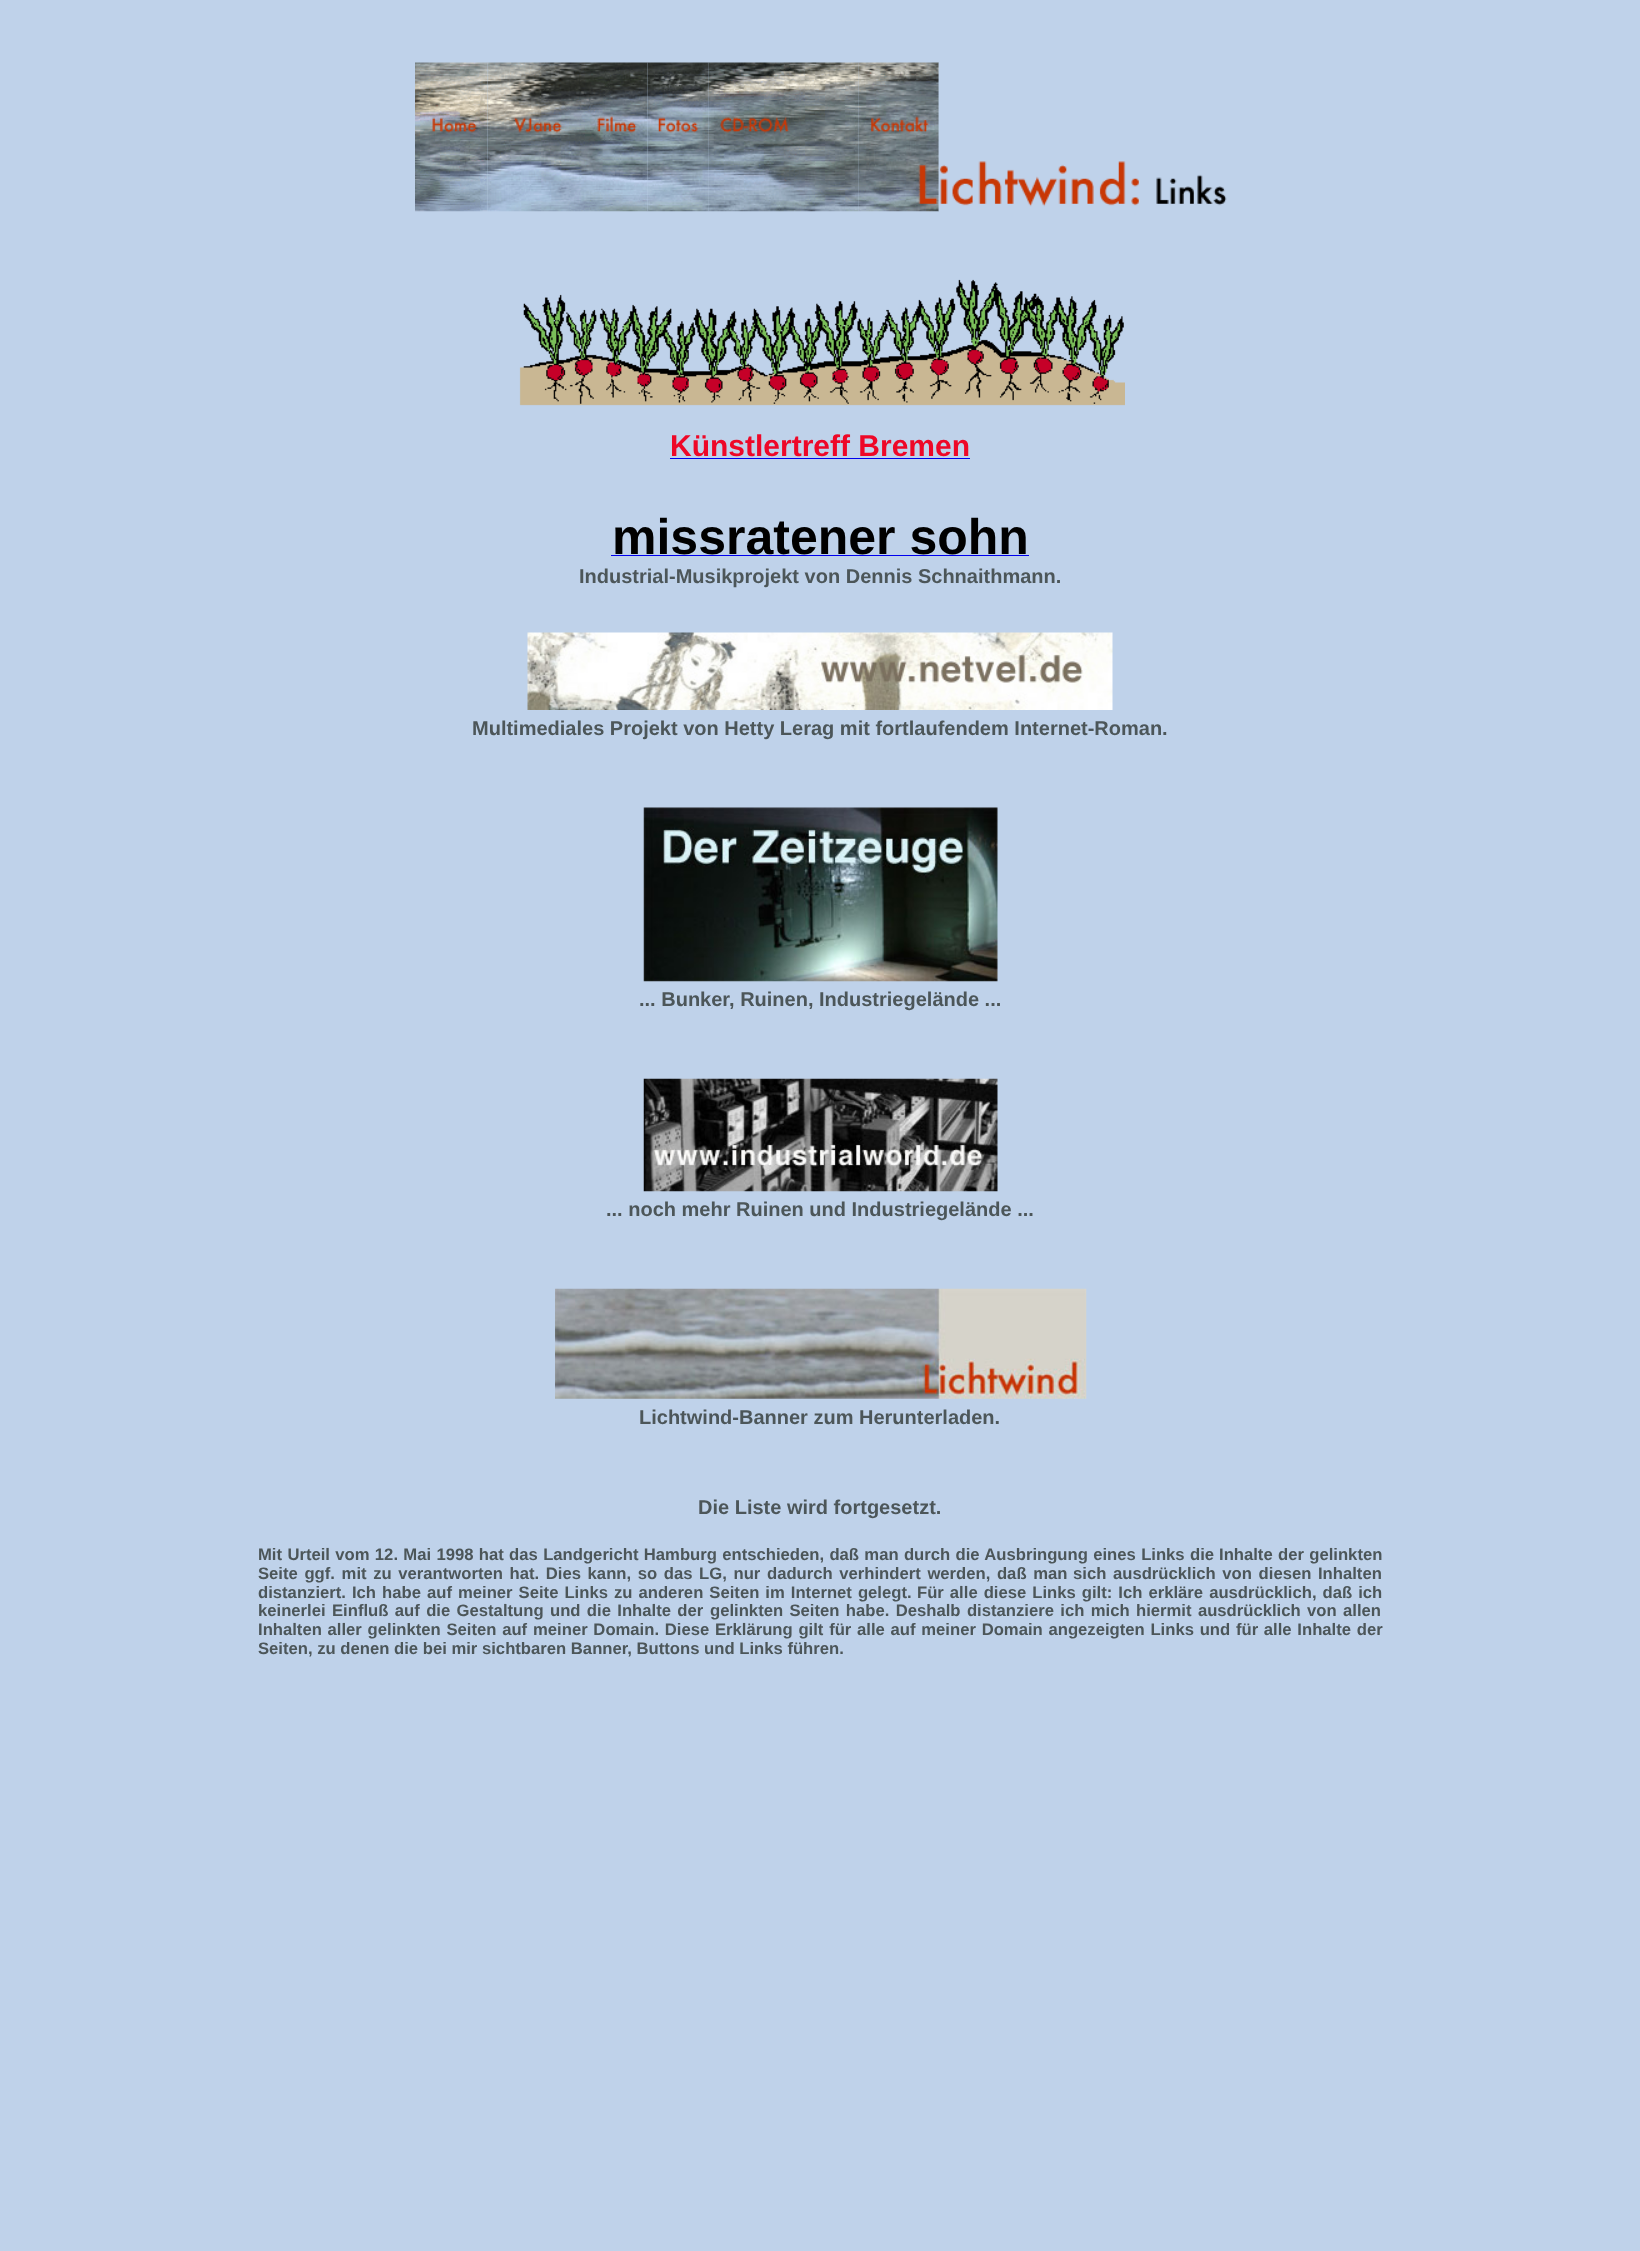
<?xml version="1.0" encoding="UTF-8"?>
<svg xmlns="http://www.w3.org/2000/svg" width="1640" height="2251">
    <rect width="100%" height="100%" fill="#BFD2EA"/>
    <image x="415" y="62" width="73" height="150" href="img_01.png"/>
    <image x="487" y="62" width="98" height="150" href="img_02.png"/>
    <image x="585" y="62" width="63" height="150" href="img_03.png"/>
    <image x="647" y="62" width="62" height="150" href="img_04.png"/>
    <image x="708" y="62" width="92" height="150" href="img_05.png"/>
    <image x="800" y="62" width="59" height="150" href="img_06.png"/>
    <image x="858" y="62" width="81" height="150" href="img_07.png"/>
    <image x="938" y="62" width="289" height="149" href="img_08.png"/>
    <image x="519" y="279" width="606" height="127" href="img_09.png"/>
    <text x="670" y="456" font-family="Liberation Sans" font-size="30" font-weight="700" fill="#EE0727">Künstlertreff Bremen</text>
    <rect x="670" y="458" width="300" height="1" fill="#0000EE"/>
    <text x="612" y="554" font-family="Liberation Sans" font-size="50" font-weight="700" fill="#000000">missratener sohn</text>
    <rect x="611" y="555" width="418" height="1" fill="#0000EE"/>
    <text x="579" y="583" font-family="Liberation Sans" font-size="20" font-weight="700" fill="#4C5659">Industrial-Musikprojekt von Dennis Schnaithmann.</text>
    <image x="527" y="632" width="586" height="78" href="img_10.png"/>
    <text x="472" y="735" font-family="Liberation Sans" font-size="20" font-weight="700" fill="#4C5659">Multimediales Projekt von Hetty Lerag mit fortlaufendem Internet-Roman.</text>
    <image x="643" y="807" width="355" height="175" href="img_11.png"/>
    <text x="639" y="1006" font-family="Liberation Sans" font-size="20" font-weight="700" fill="#4C5659">... Bunker, Ruinen, Industriegelände ...</text>
    <image x="643" y="1078" width="355" height="114" href="img_12.png"/>
    <text x="606" y="1216" font-family="Liberation Sans" font-size="20" font-weight="700" fill="#4C5659">... noch mehr Ruinen und Industriegelände ...</text>
    <image x="555" y="1288" width="532" height="111" href="img_13.png"/>
    <text x="639" y="1424" font-family="Liberation Sans" font-size="20" font-weight="700" fill="#4C5659">Lichtwind-Banner zum Herunterladen.</text>
    <text x="698" y="1514" font-family="Liberation Sans" font-size="20" font-weight="700" fill="#4C5659">Die Liste wird fortgesetzt.</text>
    <text x="258" y="1560" word-spacing="0.7" font-family="Liberation Sans" font-size="16.67" font-weight="700" fill="#4C5659">Mit Urteil vom 12. Mai 1998 hat das Landgericht Hamburg entschieden, daß man durch die Ausbringung eines Links die</text>
    <text x="1219" y="1560" word-spacing="0.7" font-family="Liberation Sans" font-size="16.67" font-weight="700" fill="#4C5659">Inhalte der gelinkten</text>
    <text x="258" y="1579" word-spacing="2" font-family="Liberation Sans" font-size="16.67" font-weight="700" fill="#4C5659">Seite ggf. mit zu verantworten hat. Dies kann, so das LG, nur dadurch verhindert werden, daß man</text>
    <text x="1073" y="1579" word-spacing="2" font-family="Liberation Sans" font-size="16.67" font-weight="700" fill="#4C5659">sich ausdrücklich von diesen Inhalten</text>
    <text x="258" y="1598" word-spacing="1.4" font-family="Liberation Sans" font-size="16.67" font-weight="700" fill="#4C5659">distanziert. Ich habe auf meiner Seite Links zu anderen Seiten im Internet gelegt.</text>
    <text x="917" y="1598" word-spacing="1.4" font-family="Liberation Sans" font-size="16.67" font-weight="700" fill="#4C5659">Für alle diese Links gilt: Ich erkläre ausdrücklich, daß ich</text>
    <text x="258" y="1616" word-spacing="1.75" font-family="Liberation Sans" font-size="16.67" font-weight="700" fill="#4C5659">keinerlei Einfluß auf die Gestaltung und die Inhalte der</text>
    <text x="710" y="1616" word-spacing="1.75" font-family="Liberation Sans" font-size="16.67" font-weight="700" fill="#4C5659">gelinkten Seiten habe. Deshalb distanziere ich mich hiermit ausdrücklich von allen</text>
    <text x="258" y="1635" word-spacing="1.1" font-family="Liberation Sans" font-size="16.67" font-weight="700" fill="#4C5659">Inhalten aller gelinkten Seiten auf</text>
    <text x="533" y="1635" word-spacing="1.1" font-family="Liberation Sans" font-size="16.67" font-weight="700" fill="#4C5659">meiner Domain. Diese Erklärung gilt für alle auf meiner Domain angezeigten Links und für alle Inhalte der</text>
    <text x="258" y="1654" font-family="Liberation Sans" font-size="16.67" font-weight="700" fill="#4C5659">Seiten, zu denen die bei mir sichtbaren Banner, Buttons und Links führen.</text>
</svg>
